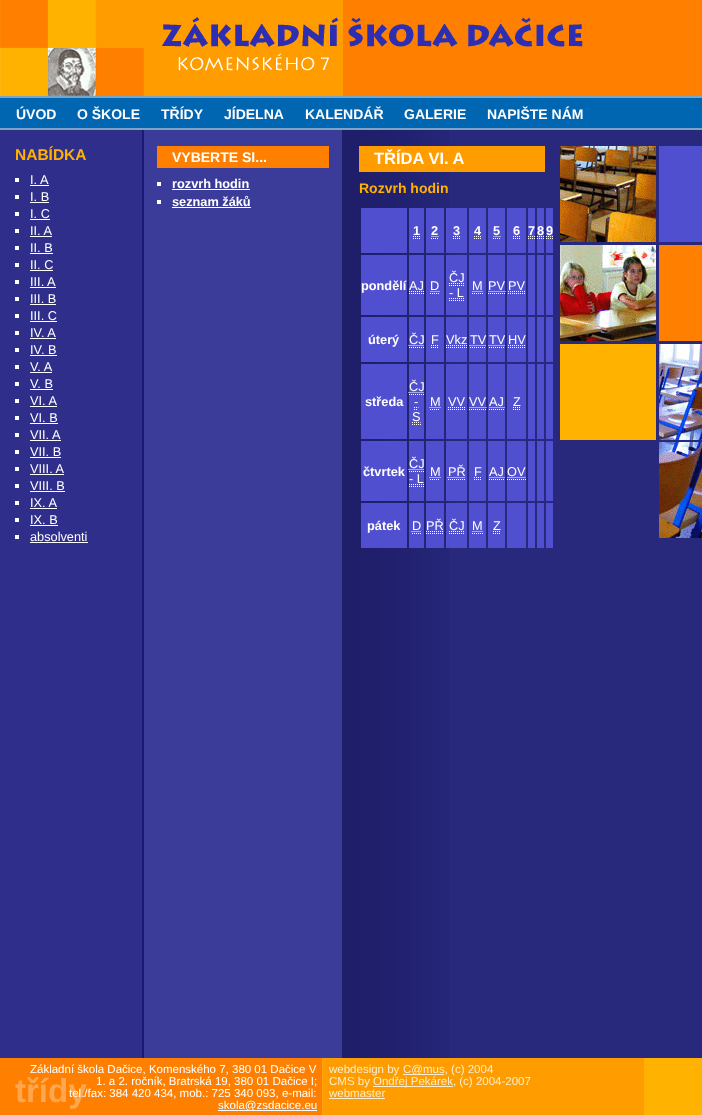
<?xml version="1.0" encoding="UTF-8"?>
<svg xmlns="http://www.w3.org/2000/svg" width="702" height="1115">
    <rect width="100%" height="100%" fill="#28287D"/>
    <image x="0" y="130" width="449" height="928" href="img_01.png"/>
    <rect x="343" y="0" width="359" height="96" fill="#FF8000"/>
    <image x="0" y="0" width="343" height="96" href="img_02.png"/>
    <image x="161" y="2" width="422" height="69" href="img_03.png"/>
    <rect x="0" y="98" width="702" height="30" fill="#0066B2"/>
    <rect x="0" y="96" width="702" height="2" fill="#79A5C6"/>
    <rect x="0" y="128" width="702" height="2" fill="#79A5C6"/>
    <text x="16" y="119" font-family="Liberation Sans" font-size="14" font-weight="700" fill="#FFFFFF">ÚVOD</text>
    <text x="77" y="119" font-family="Liberation Sans" font-size="14" font-weight="700" fill="#FFFFFF">O ŠKOLE</text>
    <text x="161" y="119" font-family="Liberation Sans" font-size="14" font-weight="700" fill="#FFFFFF">TŘÍDY</text>
    <text x="224" y="119" font-family="Liberation Sans" font-size="14" font-weight="700" fill="#FFFFFF">JÍDELNA</text>
    <text x="305" y="119" font-family="Liberation Sans" font-size="14" font-weight="700" fill="#FFFFFF">KALENDÁŘ</text>
    <text x="404" y="119" font-family="Liberation Sans" font-size="14" font-weight="700" fill="#FFFFFF">GALERIE</text>
    <text x="487" y="119" font-family="Liberation Sans" font-size="14" font-weight="700" fill="#FFFFFF">NAPIŠTE NÁM</text>
    <image x="560" y="146" width="142" height="392" href="img_04.png"/>
    <text x="15" y="160" font-family="Liberation Sans" font-size="15.5" font-weight="700" fill="#FFB200">NABÍDKA</text>
    <rect x="15" y="178" width="4" height="4" fill="#FFFFFF"/>
    <text x="30" y="184" font-family="Liberation Sans" font-size="12.75" fill="#FFFFFF">I. A</text>
    <rect x="30" y="185" width="19" height="1" fill="#FFFFFF"/>
    <rect x="15" y="195" width="4" height="4" fill="#FFFFFF"/>
    <text x="30" y="201" font-family="Liberation Sans" font-size="12.75" fill="#FFFFFF">I. B</text>
    <rect x="30" y="202" width="19" height="1" fill="#FFFFFF"/>
    <rect x="15" y="212" width="4" height="4" fill="#FFFFFF"/>
    <text x="30" y="218" font-family="Liberation Sans" font-size="12.75" fill="#FFFFFF">I. C</text>
    <rect x="30" y="219" width="20" height="1" fill="#FFFFFF"/>
    <rect x="15" y="229" width="4" height="4" fill="#FFFFFF"/>
    <text x="30" y="235" font-family="Liberation Sans" font-size="12.75" fill="#FFFFFF">II. A</text>
    <rect x="30" y="236" width="22" height="1" fill="#FFFFFF"/>
    <rect x="15" y="246" width="4" height="4" fill="#FFFFFF"/>
    <text x="30" y="252" font-family="Liberation Sans" font-size="12.75" fill="#FFFFFF">II. B</text>
    <rect x="30" y="253" width="23" height="1" fill="#FFFFFF"/>
    <rect x="15" y="263" width="4" height="4" fill="#FFFFFF"/>
    <text x="30" y="269" font-family="Liberation Sans" font-size="12.75" fill="#FFFFFF">II. C</text>
    <rect x="30" y="270" width="23" height="1" fill="#FFFFFF"/>
    <rect x="15" y="280" width="4" height="4" fill="#FFFFFF"/>
    <text x="30" y="286" font-family="Liberation Sans" font-size="12.75" fill="#FFFFFF">III. A</text>
    <rect x="30" y="287" width="26" height="1" fill="#FFFFFF"/>
    <rect x="15" y="297" width="4" height="4" fill="#FFFFFF"/>
    <text x="30" y="303" font-family="Liberation Sans" font-size="12.75" fill="#FFFFFF">III. B</text>
    <rect x="30" y="304" width="26" height="1" fill="#FFFFFF"/>
    <rect x="15" y="314" width="4" height="4" fill="#FFFFFF"/>
    <text x="30" y="320" font-family="Liberation Sans" font-size="12.75" fill="#FFFFFF">III. C</text>
    <rect x="30" y="321" width="27" height="1" fill="#FFFFFF"/>
    <rect x="15" y="331" width="4" height="4" fill="#FFFFFF"/>
    <text x="30" y="337" font-family="Liberation Sans" font-size="12.75" fill="#FFFFFF">IV. A</text>
    <rect x="30" y="338" width="26" height="1" fill="#FFFFFF"/>
    <rect x="15" y="348" width="4" height="4" fill="#FFFFFF"/>
    <text x="30" y="354" font-family="Liberation Sans" font-size="12.75" fill="#FFFFFF">IV. B</text>
    <rect x="30" y="355" width="27" height="1" fill="#FFFFFF"/>
    <rect x="15" y="365" width="4" height="4" fill="#FFFFFF"/>
    <text x="30" y="371" font-family="Liberation Sans" font-size="12.75" fill="#FFFFFF">V. A</text>
    <rect x="30" y="372" width="22" height="1" fill="#FFFFFF"/>
    <rect x="15" y="382" width="4" height="4" fill="#FFFFFF"/>
    <text x="30" y="388" font-family="Liberation Sans" font-size="12.75" fill="#FFFFFF">V. B</text>
    <rect x="30" y="389" width="23" height="1" fill="#FFFFFF"/>
    <rect x="15" y="399" width="4" height="4" fill="#FFFFFF"/>
    <text x="30" y="405" font-family="Liberation Sans" font-size="12.75" fill="#FFFFFF">VI. A</text>
    <rect x="30" y="406" width="27" height="1" fill="#FFFFFF"/>
    <rect x="15" y="416" width="4" height="4" fill="#FFFFFF"/>
    <text x="30" y="422" font-family="Liberation Sans" font-size="12.75" fill="#FFFFFF">VI. B</text>
    <rect x="30" y="423" width="28" height="1" fill="#FFFFFF"/>
    <rect x="15" y="433" width="4" height="4" fill="#FFFFFF"/>
    <text x="30" y="439" font-family="Liberation Sans" font-size="12.75" fill="#FFFFFF">VII. A</text>
    <rect x="30" y="440" width="31" height="1" fill="#FFFFFF"/>
    <rect x="15" y="450" width="4" height="4" fill="#FFFFFF"/>
    <text x="30" y="456" font-family="Liberation Sans" font-size="12.75" fill="#FFFFFF">VII. B</text>
    <rect x="30" y="457" width="31" height="1" fill="#FFFFFF"/>
    <rect x="15" y="467" width="4" height="4" fill="#FFFFFF"/>
    <text x="30" y="473" font-family="Liberation Sans" font-size="12.75" fill="#FFFFFF">VIII. A</text>
    <rect x="30" y="474" width="34" height="1" fill="#FFFFFF"/>
    <rect x="15" y="484" width="4" height="4" fill="#FFFFFF"/>
    <text x="30" y="490" font-family="Liberation Sans" font-size="12.75" fill="#FFFFFF">VIII. B</text>
    <rect x="30" y="491" width="35" height="1" fill="#FFFFFF"/>
    <rect x="15" y="501" width="4" height="4" fill="#FFFFFF"/>
    <text x="30" y="507" font-family="Liberation Sans" font-size="12.75" fill="#FFFFFF">IX. A</text>
    <rect x="30" y="508" width="27" height="1" fill="#FFFFFF"/>
    <rect x="15" y="518" width="4" height="4" fill="#FFFFFF"/>
    <text x="30" y="524" font-family="Liberation Sans" font-size="12.75" fill="#FFFFFF">IX. B</text>
    <rect x="30" y="525" width="28" height="1" fill="#FFFFFF"/>
    <rect x="15" y="535" width="4" height="4" fill="#FFFFFF"/>
    <text x="30" y="541" font-family="Liberation Sans" font-size="12.75" fill="#FFFFFF">absolventi</text>
    <rect x="30" y="542" width="58" height="1" fill="#FFFFFF"/>
    <rect x="157" y="146" width="172" height="22" fill="#FF8000"/>
    <text x="172" y="162" font-family="Liberation Sans" font-size="14" font-weight="700" fill="#FFFFFF">VYBERTE SI...</text>
    <rect x="157" y="182" width="4" height="4" fill="#FFFFFF"/>
    <text x="172" y="188" font-family="Liberation Sans" font-size="12.75" font-weight="700" fill="#FFFFFF">rozvrh hodin</text>
    <rect x="172" y="189" width="78" height="1" fill="#FFFFFF"/>
    <rect x="157" y="200" width="4" height="4" fill="#FFFFFF"/>
    <text x="172" y="206" font-family="Liberation Sans" font-size="12.75" font-weight="700" fill="#FFFFFF">seznam žáků</text>
    <rect x="172" y="207" width="79" height="1" fill="#FFFFFF"/>
    <rect x="359" y="146" width="186" height="26" fill="#FF9C00"/>
    <text x="374" y="164" font-family="Liberation Sans" font-size="16.5" font-weight="700" fill="#FFFFFF">TŘÍDA VI. A</text>
    <text x="359" y="193" font-family="Liberation Sans" font-size="14" font-weight="700" fill="#FFB200">Rozvrh hodin</text>
    <rect x="361" y="208" width="46" height="45" fill="#4F4FCF"/>
    <rect x="409" y="208" width="15" height="45" fill="#4F4FCF"/>
    <text x="413" y="235" font-family="Liberation Sans" font-size="12.75" font-weight="700" fill="#FFFFFF">1</text>
    <path d="M 413 238.5 H 414 M 415 238.5 H 416 M 417 238.5 H 418 M 419 238.5 H 420" fill="none" stroke="#FFFFFF"/>
    <path d="M 413 236.5 H 420" fill="none" stroke="#FFFFFF" stroke-dasharray="1 1"/>
    <rect x="426" y="208" width="18" height="45" fill="#4F4FCF"/>
    <text x="431" y="235" font-family="Liberation Sans" font-size="12.75" font-weight="700" fill="#FFFFFF">2</text>
    <path d="M 431 238.5 H 439 M 431.5 236.5 H 438.5" fill="none" stroke="#FFFFFF" stroke-dasharray="1 1"/>
    <rect x="446" y="208" width="21" height="45" fill="#4F4FCF"/>
    <text x="453" y="235" font-family="Liberation Sans" font-size="12.75" font-weight="700" fill="#FFFFFF">3</text>
    <path d="M 453 238.5 H 454 M 455 238.5 H 456 M 457 238.5 H 458 M 459 238.5 H 460" fill="none" stroke="#FFFFFF"/>
    <path d="M 453 236.5 H 460" fill="none" stroke="#FFFFFF" stroke-dasharray="1 1"/>
    <rect x="469" y="208" width="17" height="45" fill="#4F4FCF"/>
    <text x="474" y="235" font-family="Liberation Sans" font-size="12.75" font-weight="700" fill="#FFFFFF">4</text>
    <path d="M 474 238.5 H 475 M 476 238.5 H 477 M 478 238.5 H 479 M 480 238.5 H 481" fill="none" stroke="#FFFFFF"/>
    <path d="M 474 236.5 H 481.5" fill="none" stroke="#FFFFFF" stroke-dasharray="1 1"/>
    <rect x="488" y="208" width="17" height="45" fill="#4F4FCF"/>
    <text x="493" y="235" font-family="Liberation Sans" font-size="12.75" font-weight="700" fill="#FFFFFF">5</text>
    <path d="M 493 238.5 H 494 M 495 238.5 H 496 M 497 238.5 H 498 M 499 238.5 H 500" fill="none" stroke="#FFFFFF"/>
    <path d="M 493.5 236.5 H 500.5" fill="none" stroke="#FFFFFF" stroke-dasharray="1 1"/>
    <rect x="507" y="208" width="19" height="45" fill="#4F4FCF"/>
    <text x="513" y="235" font-family="Liberation Sans" font-size="12.75" font-weight="700" fill="#FFFFFF">6</text>
    <path d="M 513 238.5 H 514 M 515 238.5 H 516 M 517 238.5 H 518 M 519 238.5 H 520" fill="none" stroke="#FFFFFF"/>
    <path d="M 513 236.5 H 520" fill="none" stroke="#FFFFFF" stroke-dasharray="1 1"/>
    <rect x="528" y="208" width="7" height="45" fill="#4F4FCF"/>
    <text x="528" y="235" font-family="Liberation Sans" font-size="12.75" font-weight="700" fill="#FFFFFF">7</text>
    <path d="M 528 238.5 H 529 M 530 238.5 H 531 M 532 238.5 H 533 M 534 238.5 H 535" fill="none" stroke="#FFFFFF"/>
    <path d="M 528 236.5 H 535" fill="none" stroke="#FFFFFF" stroke-dasharray="1 1"/>
    <rect x="537" y="208" width="7" height="45" fill="#4F4FCF"/>
    <text x="537" y="235" font-family="Liberation Sans" font-size="12.75" font-weight="700" fill="#FFFFFF">8</text>
    <path d="M 537 238.5 H 538 M 539 238.5 H 540 M 541 238.5 H 542 M 543 238.5 H 544" fill="none" stroke="#FFFFFF"/>
    <path d="M 537 236.5 H 544" fill="none" stroke="#FFFFFF" stroke-dasharray="1 1"/>
    <rect x="546" y="208" width="7" height="45" fill="#4F4FCF"/>
    <text x="546" y="235" font-family="Liberation Sans" font-size="12.75" font-weight="700" fill="#FFFFFF">9</text>
    <path d="M 546 238.5 H 547 M 548 238.5 H 549 M 550 238.5 H 551 M 552 238.5 H 553" fill="none" stroke="#FFFFFF"/>
    <path d="M 546 236.5 H 553.5" fill="none" stroke="#FFFFFF" stroke-dasharray="1 1"/>
    <rect x="361" y="255" width="46" height="60" fill="#4F4FCF"/>
    <text x="361" y="290" font-family="Liberation Sans" font-size="12.75" font-weight="700" fill="#FFFFFF">pondělí</text>
    <rect x="409" y="255" width="15" height="60" fill="#4F4FCF"/>
    <text x="409" y="290" font-family="Liberation Sans" font-size="12.75" fill="#FFFFFF">AJ</text>
    <path d="M 409 293.5 H 424 M 409 291.5 H 424" fill="none" stroke="#FFFFFF" stroke-dasharray="1 1"/>
    <rect x="426" y="255" width="18" height="60" fill="#4F4FCF"/>
    <text x="430" y="290" font-family="Liberation Sans" font-size="12.75" fill="#FFFFFF">D</text>
    <path d="M 430 293.5 H 440 M 430.5 291.5 H 439.5" fill="none" stroke="#FFFFFF" stroke-dasharray="1 1"/>
    <rect x="446" y="255" width="21" height="60" fill="#4F4FCF"/>
    <text x="449" y="282" font-family="Liberation Sans" font-size="12.75" fill="#FFFFFF">ČJ</text>
    <path d="M 449 285.5 H 464 M 449 300.5 H 464 M 449 283.5 H 464.5" fill="none" stroke="#FFFFFF" stroke-dasharray="1 1"/>
    <text x="449" y="297" font-family="Liberation Sans" font-size="12.75" fill="#FFFFFF">- L</text>
    <path d="M 449 298.5 H 464" fill="none" stroke="#FFFFFF" stroke-dasharray="1 1"/>
    <rect x="469" y="255" width="17" height="60" fill="#4F4FCF"/>
    <text x="472" y="290" font-family="Liberation Sans" font-size="12.75" fill="#FFFFFF">M</text>
    <path d="M 472 293.5 H 483 M 472.5 291.5 H 483" fill="none" stroke="#FFFFFF" stroke-dasharray="1 1"/>
    <rect x="488" y="255" width="17" height="60" fill="#4F4FCF"/>
    <text x="488" y="290" font-family="Liberation Sans" font-size="12.75" fill="#FFFFFF">PV</text>
    <path d="M 488 293.5 H 505 M 488.5 291.5 H 505.5" fill="none" stroke="#FFFFFF" stroke-dasharray="1 1"/>
    <rect x="507" y="255" width="19" height="60" fill="#4F4FCF"/>
    <text x="508" y="290" font-family="Liberation Sans" font-size="12.75" fill="#FFFFFF">PV</text>
    <path d="M 508 293.5 H 525 M 508 291.5 H 525" fill="none" stroke="#FFFFFF" stroke-dasharray="1 1"/>
    <rect x="528" y="255" width="7" height="60" fill="#4F4FCF"/>
    <rect x="537" y="255" width="7" height="60" fill="#4F4FCF"/>
    <rect x="546" y="255" width="7" height="60" fill="#4F4FCF"/>
    <rect x="361" y="317" width="46" height="45" fill="#4F4FCF"/>
    <text x="368" y="344" font-family="Liberation Sans" font-size="12.75" font-weight="700" fill="#FFFFFF">úterý</text>
    <rect x="409" y="317" width="15" height="45" fill="#4F4FCF"/>
    <text x="409" y="344" font-family="Liberation Sans" font-size="12.75" fill="#FFFFFF">ČJ</text>
    <path d="M 409 347.5 H 424 M 408.5 345.5 H 424" fill="none" stroke="#FFFFFF" stroke-dasharray="1 1"/>
    <rect x="426" y="317" width="18" height="45" fill="#4F4FCF"/>
    <text x="431" y="344" font-family="Liberation Sans" font-size="12.75" fill="#FFFFFF">F</text>
    <path d="M 431 347.5 H 439 M 431 345.5 H 439" fill="none" stroke="#FFFFFF" stroke-dasharray="1 1"/>
    <rect x="446" y="317" width="21" height="45" fill="#4F4FCF"/>
    <text x="446" y="344" font-family="Liberation Sans" font-size="12.75" fill="#FFFFFF">Vkz</text>
    <path d="M 446 347.5 H 467 M 446 345.5 H 467.5" fill="none" stroke="#FFFFFF" stroke-dasharray="1 1"/>
    <rect x="469" y="317" width="17" height="45" fill="#4F4FCF"/>
    <text x="470" y="344" font-family="Liberation Sans" font-size="12.75" fill="#FFFFFF">TV</text>
    <path d="M 470 347.5 H 486 M 469.5 345.5 H 486" fill="none" stroke="#FFFFFF" stroke-dasharray="1 1"/>
    <rect x="488" y="317" width="17" height="45" fill="#4F4FCF"/>
    <text x="489" y="344" font-family="Liberation Sans" font-size="12.75" fill="#FFFFFF">TV</text>
    <path d="M 489 347.5 H 505 M 488.5 345.5 H 505" fill="none" stroke="#FFFFFF" stroke-dasharray="1 1"/>
    <rect x="507" y="317" width="19" height="45" fill="#4F4FCF"/>
    <text x="508" y="344" font-family="Liberation Sans" font-size="12.75" fill="#FFFFFF">HV</text>
    <path d="M 508 347.5 H 526 M 508 345.5 H 525.5" fill="none" stroke="#FFFFFF" stroke-dasharray="1 1"/>
    <rect x="528" y="317" width="7" height="45" fill="#4F4FCF"/>
    <rect x="537" y="317" width="7" height="45" fill="#4F4FCF"/>
    <rect x="546" y="317" width="7" height="45" fill="#4F4FCF"/>
    <rect x="361" y="364" width="46" height="75" fill="#4F4FCF"/>
    <text x="365" y="406" font-family="Liberation Sans" font-size="12.75" font-weight="700" fill="#FFFFFF">středa</text>
    <rect x="409" y="364" width="15" height="75" fill="#4F4FCF"/>
    <text x="409" y="391" font-family="Liberation Sans" font-size="12.75" fill="#FFFFFF">ČJ</text>
    <path d="M 409 394.5 H 424" fill="none" stroke="#FFFFFF" stroke-dasharray="1 1"/>
    <path d="M 414 409.5 H 415 M 416 409.5 H 417" fill="none" stroke="#FFFFFF"/>
    <path d="M 412 424.5 H 421 M 408.5 392.5 H 424" fill="none" stroke="#FFFFFF" stroke-dasharray="1 1"/>
    <text x="414" y="406" font-family="Liberation Sans" font-size="12.75" fill="#FFFFFF">-</text>
    <path d="M 414 407.5 H 415 M 416 407.5 H 417 M 418 407.5 H 418.5" fill="none" stroke="#FFFFFF"/>
    <text x="412" y="421" font-family="Liberation Sans" font-size="12.75" fill="#FFFFFF">S</text>
    <path d="M 412 422.5 H 420.5" fill="none" stroke="#FFFFFF" stroke-dasharray="1 1"/>
    <rect x="426" y="364" width="18" height="75" fill="#4F4FCF"/>
    <text x="430" y="406" font-family="Liberation Sans" font-size="12.75" fill="#FFFFFF">M</text>
    <path d="M 430 409.5 H 440 M 429.5 407.5 H 440.5" fill="none" stroke="#FFFFFF" stroke-dasharray="1 1"/>
    <rect x="446" y="364" width="21" height="75" fill="#4F4FCF"/>
    <text x="448" y="406" font-family="Liberation Sans" font-size="12.75" fill="#FFFFFF">VV</text>
    <path d="M 448 409.5 H 465 M 448 407.5 H 465" fill="none" stroke="#FFFFFF" stroke-dasharray="1 1"/>
    <rect x="469" y="364" width="17" height="75" fill="#4F4FCF"/>
    <text x="469" y="406" font-family="Liberation Sans" font-size="12.75" fill="#FFFFFF">VV</text>
    <path d="M 469 409.5 H 486 M 469.5 407.5 H 486.5" fill="none" stroke="#FFFFFF" stroke-dasharray="1 1"/>
    <rect x="488" y="364" width="17" height="75" fill="#4F4FCF"/>
    <text x="489" y="406" font-family="Liberation Sans" font-size="12.75" fill="#FFFFFF">AJ</text>
    <path d="M 489 409.5 H 504 M 489.5 407.5 H 504.5" fill="none" stroke="#FFFFFF" stroke-dasharray="1 1"/>
    <rect x="507" y="364" width="19" height="75" fill="#4F4FCF"/>
    <text x="513" y="406" font-family="Liberation Sans" font-size="12.75" fill="#FFFFFF">Z</text>
    <path d="M 513 409.5 H 521 M 513 407.5 H 520.5" fill="none" stroke="#FFFFFF" stroke-dasharray="1 1"/>
    <rect x="528" y="364" width="7" height="75" fill="#4F4FCF"/>
    <rect x="537" y="364" width="7" height="75" fill="#4F4FCF"/>
    <rect x="546" y="364" width="7" height="75" fill="#4F4FCF"/>
    <rect x="361" y="441" width="46" height="60" fill="#4F4FCF"/>
    <text x="363" y="476" font-family="Liberation Sans" font-size="12.75" font-weight="700" fill="#FFFFFF">čtvrtek</text>
    <rect x="409" y="441" width="15" height="60" fill="#4F4FCF"/>
    <text x="409" y="468" font-family="Liberation Sans" font-size="12.75" fill="#FFFFFF">ČJ</text>
    <path d="M 409 471.5 H 424 M 409 486.5 H 424 M 408.5 469.5 H 424" fill="none" stroke="#FFFFFF" stroke-dasharray="1 1"/>
    <text x="409" y="483" font-family="Liberation Sans" font-size="12.75" fill="#FFFFFF">- L</text>
    <path d="M 409 484.5 H 424" fill="none" stroke="#FFFFFF" stroke-dasharray="1 1"/>
    <rect x="426" y="441" width="18" height="60" fill="#4F4FCF"/>
    <text x="430" y="476" font-family="Liberation Sans" font-size="12.75" fill="#FFFFFF">M</text>
    <path d="M 430 479.5 H 440 M 429.5 477.5 H 440.5" fill="none" stroke="#FFFFFF" stroke-dasharray="1 1"/>
    <rect x="446" y="441" width="21" height="60" fill="#4F4FCF"/>
    <text x="448" y="476" font-family="Liberation Sans" font-size="12.75" fill="#FFFFFF">PŘ</text>
    <path d="M 448 479.5 H 465 M 447.5 477.5 H 465.5" fill="none" stroke="#FFFFFF" stroke-dasharray="1 1"/>
    <rect x="469" y="441" width="17" height="60" fill="#4F4FCF"/>
    <text x="474" y="476" font-family="Liberation Sans" font-size="12.75" fill="#FFFFFF">F</text>
    <path d="M 474 479.5 H 482 M 474 477.5 H 481.5" fill="none" stroke="#FFFFFF" stroke-dasharray="1 1"/>
    <rect x="488" y="441" width="17" height="60" fill="#4F4FCF"/>
    <text x="489" y="476" font-family="Liberation Sans" font-size="12.75" fill="#FFFFFF">AJ</text>
    <path d="M 489 479.5 H 504 M 489.5 477.5 H 504.5" fill="none" stroke="#FFFFFF" stroke-dasharray="1 1"/>
    <rect x="507" y="441" width="19" height="60" fill="#4F4FCF"/>
    <text x="507" y="476" font-family="Liberation Sans" font-size="12.75" fill="#FFFFFF">OV</text>
    <path d="M 507 479.5 H 526 M 507.5 477.5 H 526" fill="none" stroke="#FFFFFF" stroke-dasharray="1 1"/>
    <rect x="528" y="441" width="7" height="60" fill="#4F4FCF"/>
    <rect x="537" y="441" width="7" height="60" fill="#4F4FCF"/>
    <rect x="546" y="441" width="7" height="60" fill="#4F4FCF"/>
    <rect x="361" y="503" width="46" height="45" fill="#4F4FCF"/>
    <text x="367" y="530" font-family="Liberation Sans" font-size="12.75" font-weight="700" fill="#FFFFFF">pátek</text>
    <rect x="409" y="503" width="15" height="45" fill="#4F4FCF"/>
    <text x="412" y="530" font-family="Liberation Sans" font-size="12.75" fill="#FFFFFF">D</text>
    <path d="M 412 533.5 H 421 M 411.5 531.5 H 421" fill="none" stroke="#FFFFFF" stroke-dasharray="1 1"/>
    <rect x="426" y="503" width="18" height="45" fill="#4F4FCF"/>
    <text x="426" y="530" font-family="Liberation Sans" font-size="12.75" fill="#FFFFFF">PŘ</text>
    <path d="M 426 533.5 H 444 M 426 531.5 H 444" fill="none" stroke="#FFFFFF" stroke-dasharray="1 1"/>
    <rect x="446" y="503" width="21" height="45" fill="#4F4FCF"/>
    <text x="449" y="530" font-family="Liberation Sans" font-size="12.75" fill="#FFFFFF">ČJ</text>
    <path d="M 449 533.5 H 464 M 449 531.5 H 464.5" fill="none" stroke="#FFFFFF" stroke-dasharray="1 1"/>
    <rect x="469" y="503" width="17" height="45" fill="#4F4FCF"/>
    <text x="472" y="530" font-family="Liberation Sans" font-size="12.75" fill="#FFFFFF">M</text>
    <path d="M 472 533.5 H 483 M 472.5 531.5 H 483" fill="none" stroke="#FFFFFF" stroke-dasharray="1 1"/>
    <rect x="488" y="503" width="17" height="45" fill="#4F4FCF"/>
    <text x="493" y="530" font-family="Liberation Sans" font-size="12.75" fill="#FFFFFF">Z</text>
    <path d="M 493 533.5 H 501 M 493 531.5 H 501" fill="none" stroke="#FFFFFF" stroke-dasharray="1 1"/>
    <rect x="507" y="503" width="19" height="45" fill="#4F4FCF"/>
    <rect x="528" y="503" width="7" height="45" fill="#4F4FCF"/>
    <rect x="537" y="503" width="7" height="45" fill="#4F4FCF"/>
    <rect x="546" y="503" width="7" height="45" fill="#4F4FCF"/>
    <rect x="0" y="1058" width="322" height="57" fill="#FF8000"/>
    <image x="322" y="1058" width="380" height="57" href="img_05.png"/>
    <text x="30" y="1073" font-family="Liberation Sans" font-size="11.5" fill="#FFFFFF">Základní škola Dačice, Komenského 7, 380 01 Dačice V</text>
    <text x="96" y="1085" font-family="Liberation Sans" font-size="11.5" fill="#FFFFFF">1. a 2. ročník, Bratrská 19, 380 01 Dačice I;</text>
    <text x="15" y="1102" font-family="Liberation Sans" font-size="33" font-weight="700" fill="#FFA74F">třídy</text>
    <text x="69" y="1097" font-family="Liberation Sans" font-size="11.5" fill="#FFFFFF">tel./fax: 384 420 434, mob.: 725 340 093, e-mail:</text>
    <rect x="218" y="1110" width="99" height="1" fill="#FFFFFF"/>
    <text x="218" y="1109" font-family="Liberation Sans" font-size="11.5" fill="#FFFFFF">skola@zsdacice.eu</text>
    <text x="329" y="1073" font-family="Liberation Sans" font-size="11.5" fill="#FBECCA">webdesign by</text>
    <rect x="403" y="1074" width="41" height="1" fill="#FBECCA"/>
    <text x="403" y="1073" font-family="Liberation Sans" font-size="11.5" fill="#FBECCA">C@mus, (c) 2004</text>
    <text x="329" y="1085" font-family="Liberation Sans" font-size="11.5" fill="#FBECCA">CMS by</text>
    <rect x="373" y="1086" width="80" height="1" fill="#FBECCA"/>
    <text x="373" y="1085" font-family="Liberation Sans" font-size="11.5" fill="#FBECCA">Ondřej Pekárek, (c) 2004-2007</text>
    <text x="329" y="1097" font-family="Liberation Sans" font-size="11.5" fill="#FBECCA">webmaster</text>
    <rect x="329" y="1098" width="56" height="1" fill="#FBECCA"/>
</svg>
